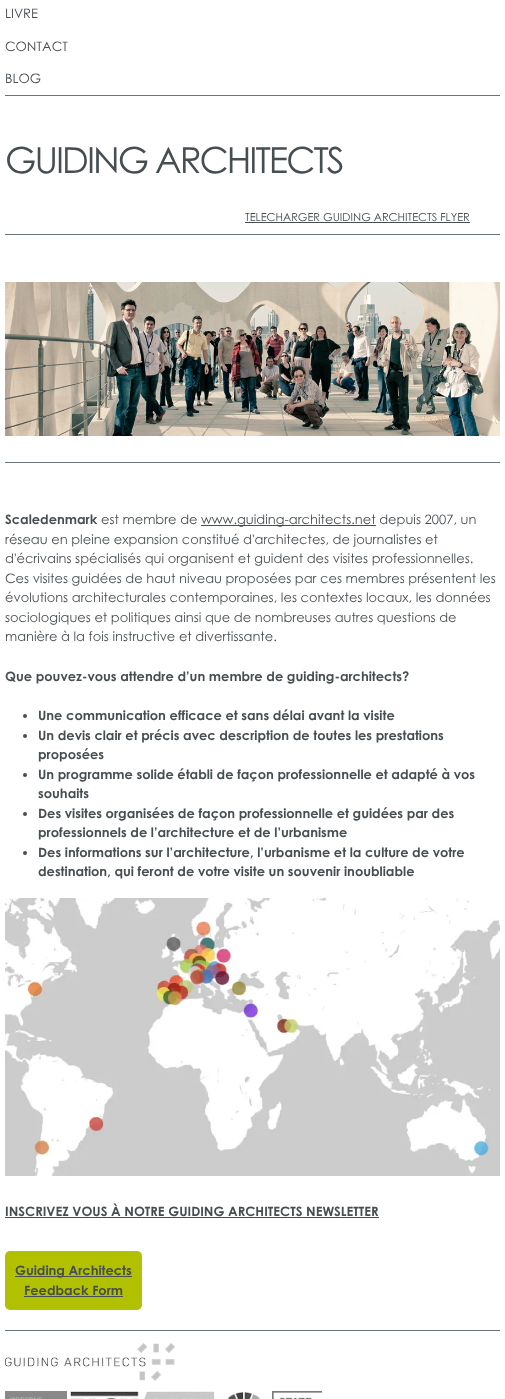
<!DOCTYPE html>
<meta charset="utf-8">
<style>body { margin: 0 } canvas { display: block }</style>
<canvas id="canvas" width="505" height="1399"></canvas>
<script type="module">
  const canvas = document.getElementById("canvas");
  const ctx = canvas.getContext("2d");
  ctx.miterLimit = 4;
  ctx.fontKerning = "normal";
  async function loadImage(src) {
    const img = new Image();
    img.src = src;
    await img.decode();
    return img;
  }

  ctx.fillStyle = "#ffffff";
  ctx.fillRect(0, 0, 505, 1399);
  ctx.fillStyle = "#69737b";
  ctx.fillRect(5, 95, 495, 1);
  ctx.font = "13px Century Gothic";
  ctx.fillStyle = "#474e52";
  ctx.fillText("LIVRE", 5, 18);
  ctx.fillText("CONTACT", 5, 51);
  ctx.fillText("BLOG", 5, 83);
  ctx.letterSpacing = "-2px";
  ctx.font = "36px Century Gothic";
  ctx.fillText("GUIDING ARCHITECTS", 5, 173);
  ctx.letterSpacing = "0px";
  ctx.font = "11px Century Gothic";
  ctx.fillText("TELECHARGER GUIDING ARCHITECTS FLYER", 245, 221);
  ctx.fillRect(245, 222, 225, 1);
  ctx.fillStyle = "#69737b";
  ctx.fillRect(5, 234, 495, 1);
  ctx.drawImage(await loadImage("img1.png"), 5, 282, 495, 154);
  ctx.fillRect(5, 462, 495, 1);
  ctx.font = "bold 13px Century Gothic";
  ctx.fillStyle = "#474e52";
  ctx.fillText("Scaledenmark", 5, 524);
  ctx.font = "13px Century Gothic";
  ctx.fillText("est membre de", 101, 524);
  ctx.fillRect(201, 525, 175, 1);
  ctx.fillText("www.guiding-architects.net depuis 2007, un", 201, 524);
  ctx.fillText("réseau en pleine expansion constitué d'architectes, de journalistes et", 5, 544);
  ctx.fillText("d'écrivains spécialisés qui organisent et guident des visites professionnelles.", 5, 563);
  ctx.fillText("Ces visites guidées de haut niveau proposées par ces membres présentent les", 5, 583);
  ctx.fillText("évolutions architecturales contemporaines, les contextes locaux, les données", 5, 602);
  ctx.fillText("sociologiques et politiques ainsi que de nombreuses autres questions de", 5, 622);
  ctx.fillText("manière à la fois instructive et divertissante.", 5, 641);
  ctx.font = "bold 13px Century Gothic";
  ctx.fillText("Que pouvez-vous attendre d’un membre de guiding-architects?", 5, 681);
  ctx.beginPath();
  ctx.arc(25, 716, 2, 0, Math.PI * 2);
  ctx.fill();
  ctx.fillText("Une communication efficace et sans délai avant la visite", 38, 720);
  ctx.beginPath();
  ctx.arc(25, 736, 2, 0, Math.PI * 2);
  ctx.fill();
  ctx.fillText("Un devis clair et précis avec description de toutes les prestations", 38, 740);
  ctx.fillText("proposées", 38, 759);
  ctx.beginPath();
  ctx.arc(25, 775, 2, 0, Math.PI * 2);
  ctx.fill();
  ctx.fillText("Un programme solide établi de façon professionnelle et adapté à vos", 38, 779);
  ctx.fillText("souhaits", 38, 798);
  ctx.beginPath();
  ctx.arc(25, 814, 2, 0, Math.PI * 2);
  ctx.fill();
  ctx.fillText("Des visites organisées de façon professionnelle et guidées par des", 38, 818);
  ctx.fillText("professionnels de l’architecture et de l’urbanisme", 38, 837);
  ctx.beginPath();
  ctx.arc(25, 853, 2, 0, Math.PI * 2);
  ctx.fill();
  ctx.fillText("Des informations sur l’architecture, l’urbanisme et la culture de votre", 38, 857);
  ctx.fillText("destination, qui feront de votre visite un souvenir inoubliable", 38, 876);
  ctx.drawImage(await loadImage("img2.png"), 5, 898, 495, 278);
  ctx.fillText("INSCRIVEZ VOUS À NOTRE GUIDING ARCHITECTS NEWSLETTER", 5, 1216);
  ctx.fillRect(5, 1217, 374, 1);
  ctx.fillStyle = "#b1c100";
  ctx.beginPath();
  ctx.roundRect(5, 1251, 137, 59, 5);
  ctx.fill();
  ctx.fillStyle = "#474e52";
  ctx.fillRect(15, 1276, 117, 1);
  ctx.fillText("Guiding Architects", 15, 1275);
  ctx.fillText("Feedback Form", 24, 1295);
  ctx.fillRect(24, 1296, 99, 1);
  ctx.fillStyle = "#69737b";
  ctx.fillRect(5, 1330, 495, 1);
  ctx.drawImage(await loadImage("img3.png"), 5, 1343, 170, 38);
  ctx.drawImage(await loadImage("img4.png"), 5, 1391, 62, 8);
  ctx.drawImage(await loadImage("img5.png"), 70, 1391, 145, 8);
  ctx.drawImage(await loadImage("img6.png"), 227, 1391, 33, 8);
  ctx.drawImage(await loadImage("img7.png"), 272, 1391, 50, 8);
</script>
